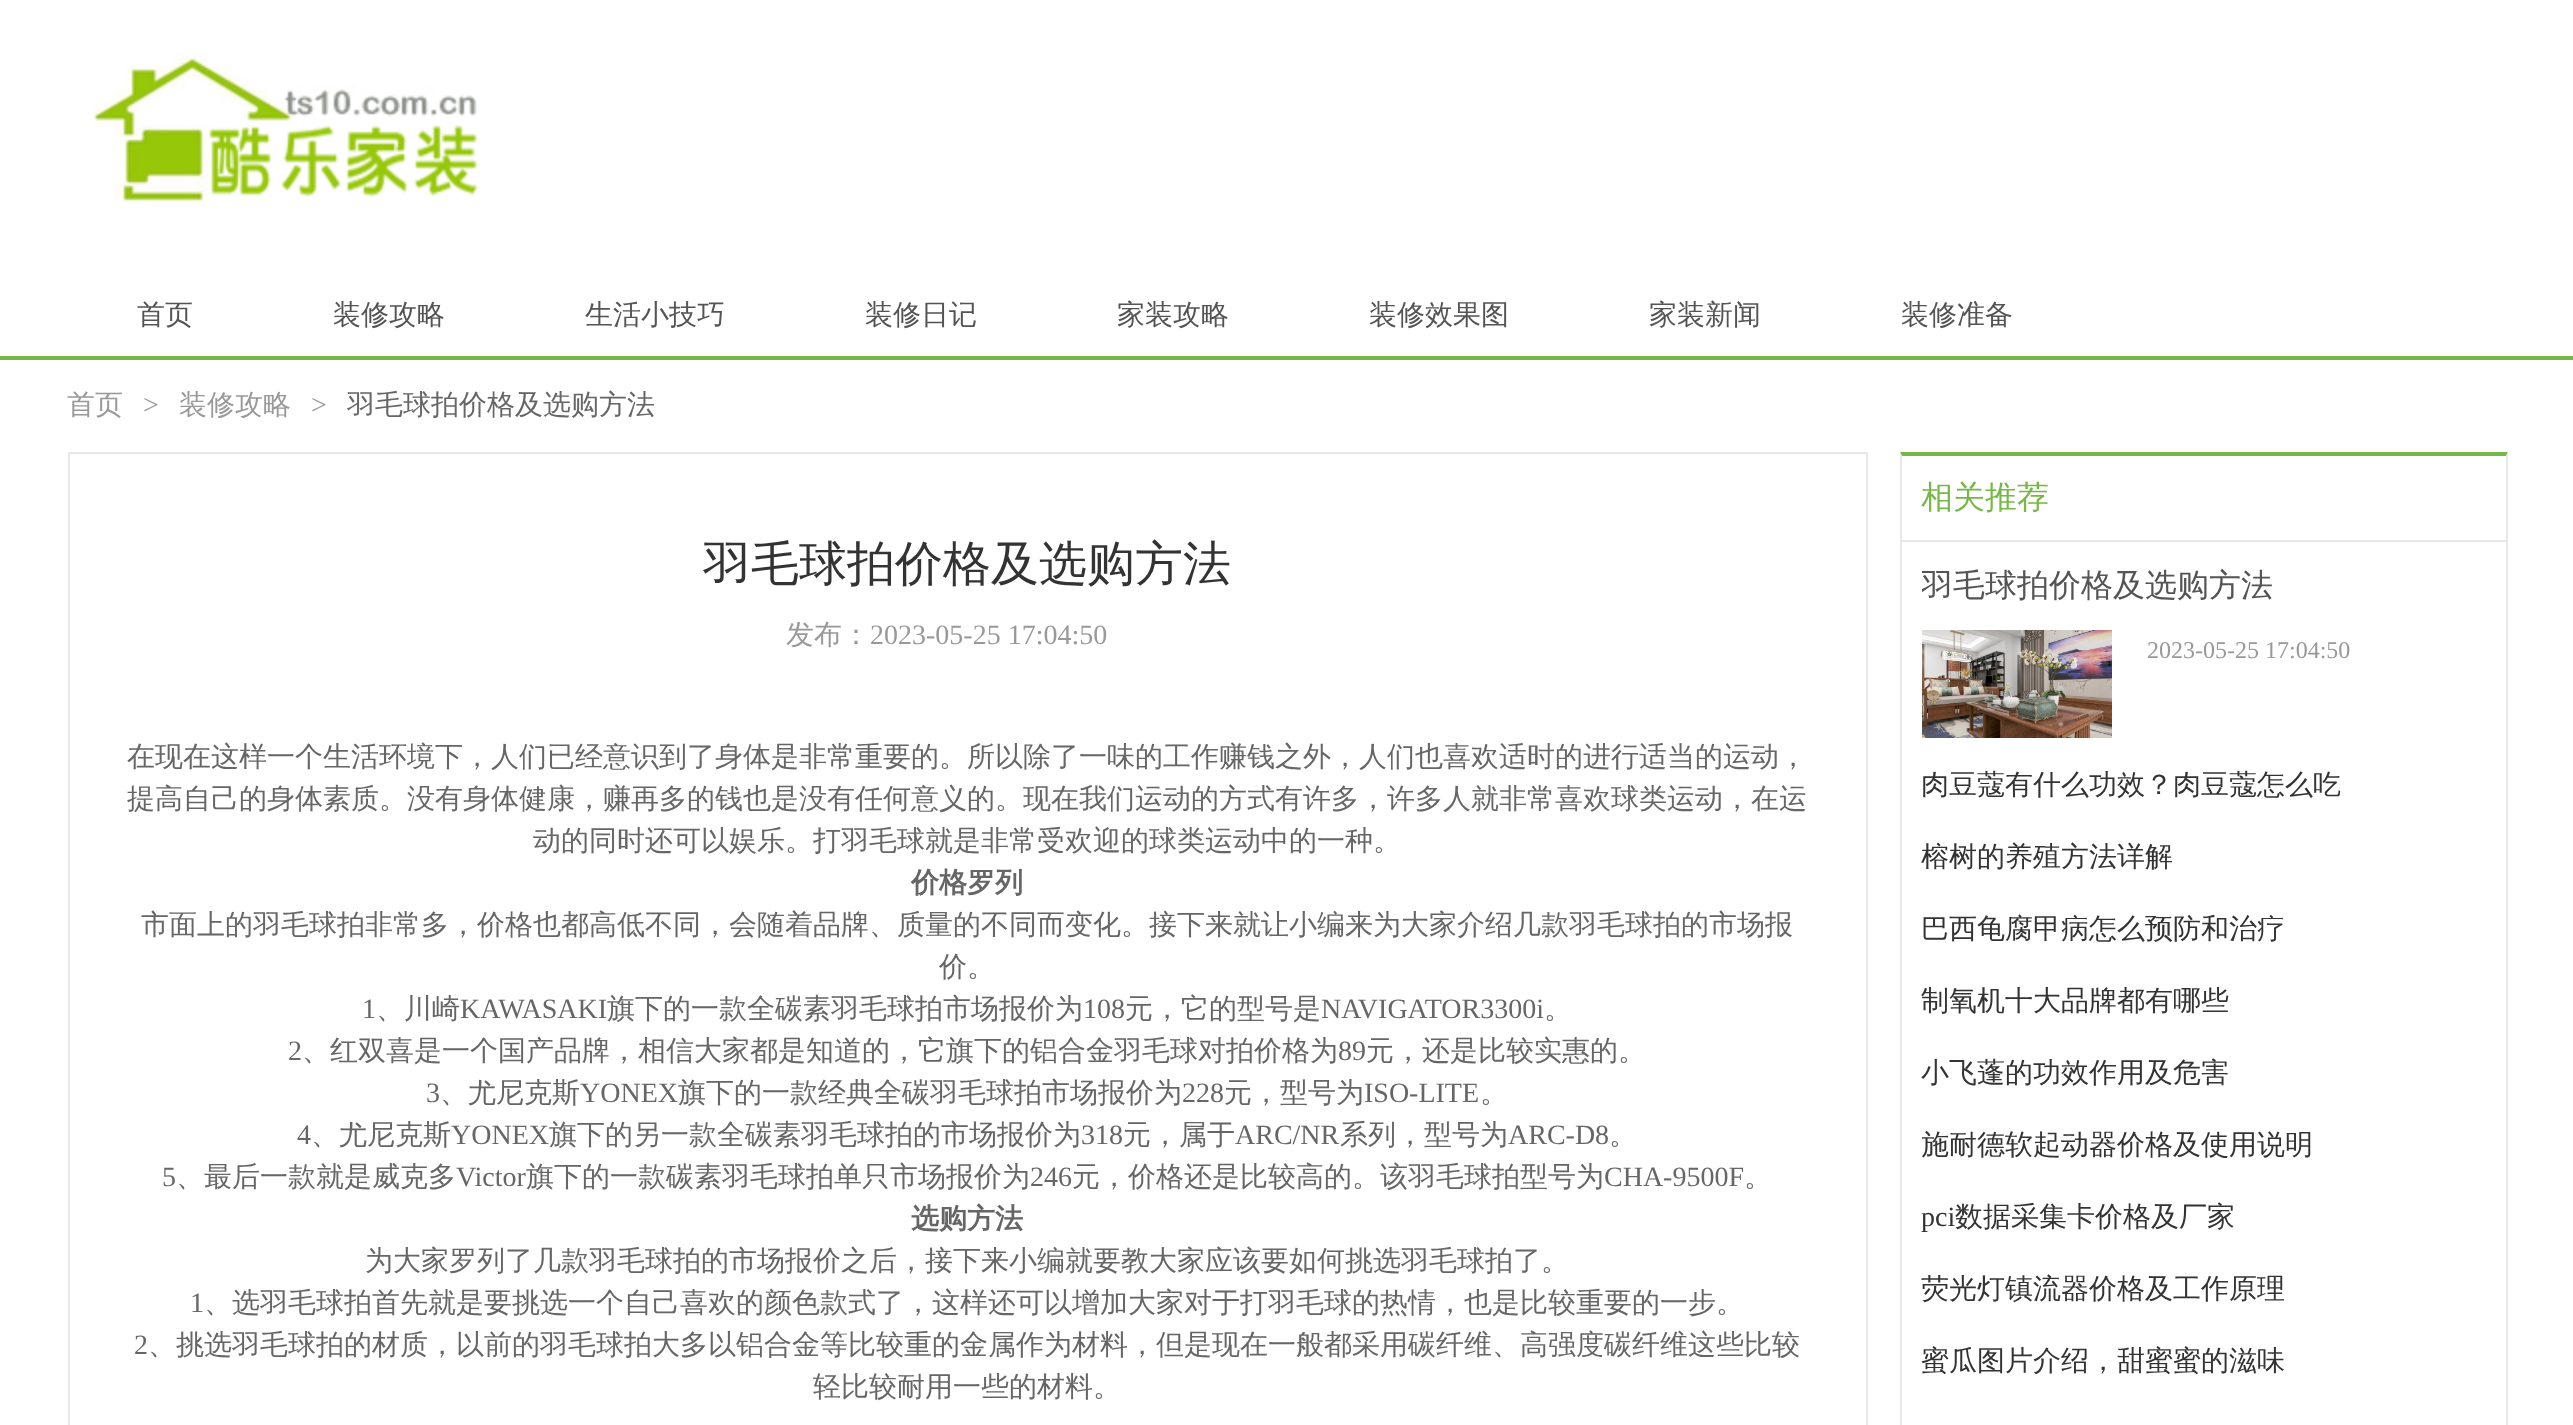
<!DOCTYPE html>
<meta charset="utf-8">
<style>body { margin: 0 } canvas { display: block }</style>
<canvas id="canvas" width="2573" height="1425"></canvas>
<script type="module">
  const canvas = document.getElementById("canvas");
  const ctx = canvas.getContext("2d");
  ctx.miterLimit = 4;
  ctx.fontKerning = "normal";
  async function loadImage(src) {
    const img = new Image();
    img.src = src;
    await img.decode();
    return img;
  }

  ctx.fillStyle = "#ffffff";
  ctx.fillRect(0, 0, 2573, 1425);
  ctx.drawImage(await loadImage("img1.png"), 93, 54, 386, 149);
  ctx.fillStyle = "#76b846";
  ctx.fillRect(0, 356, 2573, 4);
  ctx.font = "500 28px WenQuanYi Zen Hei";
  ctx.fillStyle = "#545454";
  ctx.fillText("首页", 137, 324);
  ctx.fillText("装修攻略", 333, 324);
  ctx.fillText("生活小技巧", 585, 324);
  ctx.fillText("装修日记", 865, 324);
  ctx.fillText("家装攻略", 1117, 324);
  ctx.fillText("装修效果图", 1369, 324);
  ctx.fillText("家装新闻", 1649, 324);
  ctx.fillText("装修准备", 1901, 324);
  ctx.fillStyle = "#999999";
  ctx.fillText("首页", 67, 414);
  ctx.font = "28px Liberation Serif";
  ctx.fillText(">", 143, 414);
  ctx.font = "500 28px WenQuanYi Zen Hei";
  ctx.fillText("装修攻略", 179, 414);
  ctx.font = "28px Liberation Serif";
  ctx.fillText(">", 311, 414);
  ctx.font = "500 28px WenQuanYi Zen Hei";
  ctx.fillStyle = "#666666";
  ctx.fillText("羽毛球拍价格及选购方法", 347, 414);
  ctx.strokeStyle = "#e7e7e7";
  ctx.lineWidth = 2;
  ctx.strokeRect(69, 453, 1798, 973);
  ctx.font = "500 48px WenQuanYi Zen Hei";
  ctx.fillStyle = "#333333";
  ctx.fillText("羽毛球拍价格及选购方法", 703, 580);
  ctx.font = "500 28px WenQuanYi Zen Hei";
  ctx.fillStyle = "#999999";
  ctx.fillText("发布：", 786, 644);
  ctx.font = "28px Liberation Serif";
  ctx.fillText("2023-05-25 17:04:50", 870, 644);
  ctx.font = "500 28px WenQuanYi Zen Hei";
  ctx.fillStyle = "#666666";
  ctx.fillText("在现在这样一个生活环境下，人们已经意识到了身体是非常重要的。所以除了一味的工作赚钱之外，人们也喜欢适时的进行适当的运动，", 127, 766);
  ctx.fillText("提高自己的身体素质。没有身体健康，赚再多的钱也是没有任何意义的。现在我们运动的方式有许多，许多人就非常喜欢球类运动，在运", 127, 808);
  ctx.fillText("动的同时还可以娱乐。打羽毛球就是非常受欢迎的球类运动中的一种。", 533, 850);
  ctx.font = "bold 28px WenQuanYi Zen Hei";
  ctx.fillText("价格罗列", 911, 892);
  ctx.font = "500 28px WenQuanYi Zen Hei";
  ctx.fillText("市面上的羽毛球拍非常多，价格也都高低不同，会随着品牌、质量的不同而变化。接下来就让小编来为大家介绍几款羽毛球拍的市场报", 141, 934);
  ctx.fillText("价。", 939, 976);
  ctx.font = "28px Liberation Serif";
  ctx.fillText("1", 362, 1018);
  ctx.font = "500 28px WenQuanYi Zen Hei";
  ctx.fillText("、川崎", 376, 1018);
  ctx.font = "28px Liberation Serif";
  ctx.fillText("KAWASAKI", 460, 1018);
  ctx.font = "500 28px WenQuanYi Zen Hei";
  ctx.fillText("旗下的一款全碳素羽毛球拍市场报价为", 607, 1018);
  ctx.font = "28px Liberation Serif";
  ctx.fillText("108", 1083, 1018);
  ctx.font = "500 28px WenQuanYi Zen Hei";
  ctx.fillText("元，它的型号是", 1125, 1018);
  ctx.font = "28px Liberation Serif";
  ctx.fillText("NAVIGATOR3300i", 1321, 1018);
  ctx.font = "500 28px WenQuanYi Zen Hei";
  ctx.fillText("。", 1544, 1018);
  ctx.font = "28px Liberation Serif";
  ctx.fillText("2", 288, 1060);
  ctx.font = "500 28px WenQuanYi Zen Hei";
  ctx.fillText("、红双喜是一个国产品牌，相信大家都是知道的，它旗下的铝合金羽毛球对拍价格为", 302, 1060);
  ctx.font = "28px Liberation Serif";
  ctx.fillText("89", 1338, 1060);
  ctx.font = "500 28px WenQuanYi Zen Hei";
  ctx.fillText("元，还是比较实惠的。", 1366, 1060);
  ctx.font = "28px Liberation Serif";
  ctx.fillText("3", 426, 1102);
  ctx.font = "500 28px WenQuanYi Zen Hei";
  ctx.fillText("、尤尼克斯", 440, 1102);
  ctx.font = "28px Liberation Serif";
  ctx.fillText("YONEX", 580, 1102);
  ctx.font = "500 28px WenQuanYi Zen Hei";
  ctx.fillText("旗下的一款经典全碳羽毛球拍市场报价为", 678, 1102);
  ctx.font = "28px Liberation Serif";
  ctx.fillText("228", 1182, 1102);
  ctx.font = "500 28px WenQuanYi Zen Hei";
  ctx.fillText("元，型号为", 1224, 1102);
  ctx.font = "28px Liberation Serif";
  ctx.fillText("ISO-LITE", 1364, 1102);
  ctx.font = "500 28px WenQuanYi Zen Hei";
  ctx.fillText("。", 1480, 1102);
  ctx.font = "28px Liberation Serif";
  ctx.fillText("4", 297, 1144);
  ctx.font = "500 28px WenQuanYi Zen Hei";
  ctx.fillText("、尤尼克斯", 311, 1144);
  ctx.font = "28px Liberation Serif";
  ctx.fillText("YONEX", 451, 1144);
  ctx.font = "500 28px WenQuanYi Zen Hei";
  ctx.fillText("旗下的另一款全碳素羽毛球拍的市场报价为", 549, 1144);
  ctx.font = "28px Liberation Serif";
  ctx.fillText("318", 1081, 1144);
  ctx.font = "500 28px WenQuanYi Zen Hei";
  ctx.fillText("元，属于", 1123, 1144);
  ctx.font = "28px Liberation Serif";
  ctx.fillText("ARC/NR", 1235, 1144);
  ctx.font = "500 28px WenQuanYi Zen Hei";
  ctx.fillText("系列，型号为", 1340, 1144);
  ctx.font = "28px Liberation Serif";
  ctx.fillText("ARC-D8", 1508, 1144);
  ctx.font = "500 28px WenQuanYi Zen Hei";
  ctx.fillText("。", 1609, 1144);
  ctx.font = "28px Liberation Serif";
  ctx.fillText("5", 162, 1186);
  ctx.font = "500 28px WenQuanYi Zen Hei";
  ctx.fillText("、最后一款就是威克多", 176, 1186);
  ctx.font = "28px Liberation Serif";
  ctx.fillText("Victor", 456, 1186);
  ctx.font = "500 28px WenQuanYi Zen Hei";
  ctx.fillText("旗下的一款碳素羽毛球拍单只市场报价为", 526, 1186);
  ctx.font = "28px Liberation Serif";
  ctx.fillText("246", 1030, 1186);
  ctx.font = "500 28px WenQuanYi Zen Hei";
  ctx.fillText("元，价格还是比较高的。该羽毛球拍型号为", 1072, 1186);
  ctx.font = "28px Liberation Serif";
  ctx.fillText("CHA-9500F", 1604, 1186);
  ctx.font = "500 28px WenQuanYi Zen Hei";
  ctx.fillText("。", 1744, 1186);
  ctx.font = "bold 28px WenQuanYi Zen Hei";
  ctx.fillText("选购方法", 911, 1228);
  ctx.font = "500 28px WenQuanYi Zen Hei";
  ctx.fillText("为大家罗列了几款羽毛球拍的市场报价之后，接下来小编就要教大家应该要如何挑选羽毛球拍了。", 365, 1270);
  ctx.font = "28px Liberation Serif";
  ctx.fillText("1", 190, 1312);
  ctx.font = "500 28px WenQuanYi Zen Hei";
  ctx.fillText("、选羽毛球拍首先就是要挑选一个自己喜欢的颜色款式了，这样还可以增加大家对于打羽毛球的热情，也是比较重要的一步。", 204, 1312);
  ctx.font = "28px Liberation Serif";
  ctx.fillText("2", 134, 1354);
  ctx.font = "500 28px WenQuanYi Zen Hei";
  ctx.fillText("、挑选羽毛球拍的材质，以前的羽毛球拍大多以铝合金等比较重的金属作为材料，但是现在一般都采用碳纤维、高强度碳纤维这些比较", 148, 1354);
  ctx.fillText("轻比较耐用一些的材料。", 813, 1396);
  ctx.fillStyle = "#75b845";
  ctx.beginPath();
  ctx.moveTo(1900, 452);
  ctx.lineTo(2508, 452);
  ctx.lineTo(2506, 456);
  ctx.lineTo(1902, 456);
  ctx.closePath();
  ctx.fill();
  ctx.fillStyle = "#e7e7e7";
  ctx.beginPath();
  ctx.moveTo(2508, 452);
  ctx.lineTo(2508, 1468);
  ctx.lineTo(2506, 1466);
  ctx.lineTo(2506, 456);
  ctx.closePath();
  ctx.fill();
  ctx.beginPath();
  ctx.moveTo(1900, 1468);
  ctx.lineTo(1900, 452);
  ctx.lineTo(1902, 456);
  ctx.lineTo(1902, 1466);
  ctx.closePath();
  ctx.fill();
  ctx.fillRect(1902, 540, 604, 2);
  ctx.font = "500 32px WenQuanYi Zen Hei";
  ctx.fillStyle = "#76b846";
  ctx.fillText("相关推荐", 1921, 508);
  ctx.save();
  ctx.beginPath();
  ctx.rect(1922, 562, 564, 176);
  ctx.clip();
  ctx.fillStyle = "#545454";
  ctx.fillText("羽毛球拍价格及选购方法", 1921, 596);
  ctx.restore();
  ctx.drawImage(await loadImage("img2.png"), 1922, 630, 190, 108);
  ctx.font = "24px Liberation Serif";
  ctx.fillStyle = "#999999";
  ctx.fillText("2023-05-25 17:04:50", 2147, 658);
  ctx.font = "500 28px WenQuanYi Zen Hei";
  ctx.fillStyle = "#333333";
  ctx.fillText("肉豆蔻有什么功效？肉豆蔻怎么吃", 1921, 794);
  ctx.fillText("榕树的养殖方法详解", 1921, 866);
  ctx.fillText("巴西龟腐甲病怎么预防和治疗", 1921, 938);
  ctx.fillText("制氧机十大品牌都有哪些", 1921, 1010);
  ctx.fillText("小飞蓬的功效作用及危害", 1921, 1082);
  ctx.save();
  ctx.beginPath();
  ctx.rect(1922, 1118, 564, 72);
  ctx.clip();
  ctx.fillText("施耐德软起动器价格及使用说明", 1921, 1154);
  ctx.restore();
  ctx.font = "28px Liberation Serif";
  ctx.fillText("pci", 1921, 1226);
  ctx.font = "500 28px WenQuanYi Zen Hei";
  ctx.fillText("数据采集卡价格及厂家", 1955, 1226);
  ctx.fillText("荧光灯镇流器价格及工作原理", 1921, 1298);
  ctx.fillText("蜜瓜图片介绍，甜蜜蜜的滋味", 1921, 1370);
</script>
